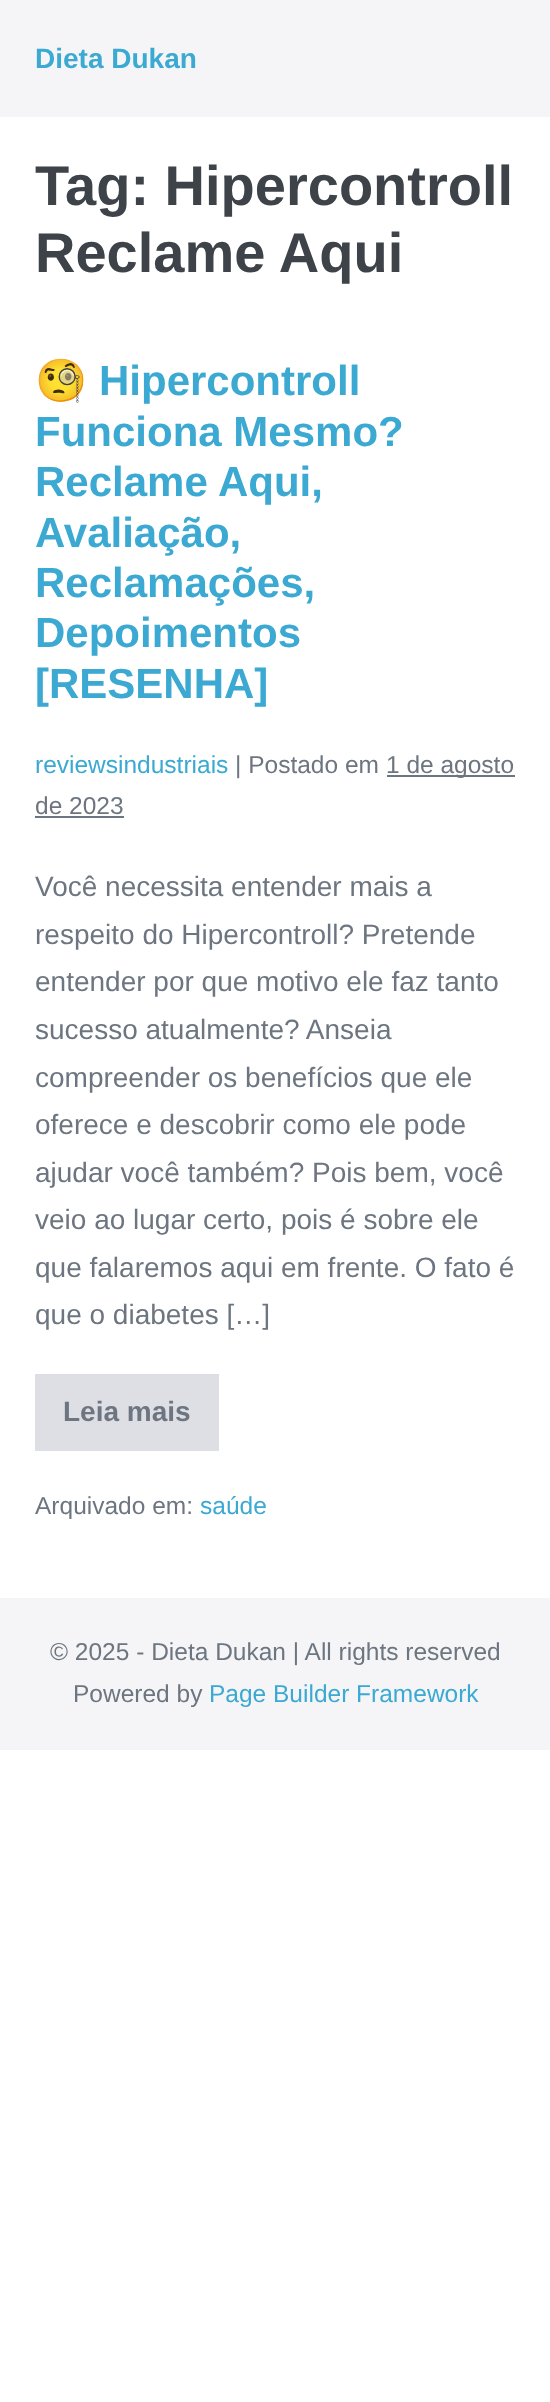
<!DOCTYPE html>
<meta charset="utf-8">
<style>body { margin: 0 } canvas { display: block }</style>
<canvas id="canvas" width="550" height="2402"></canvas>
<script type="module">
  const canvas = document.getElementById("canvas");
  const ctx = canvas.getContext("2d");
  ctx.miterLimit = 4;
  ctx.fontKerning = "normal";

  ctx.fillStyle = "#ffffff";
  ctx.fillRect(0, 0, 550, 2402);
  ctx.fillStyle = "#f5f5f7";
  ctx.fillRect(0, 0, 550, 117);
  ctx.font = "bold 28px Liberation Sans";
  ctx.fillStyle = "#3ba9d2";
  ctx.fillText("Dieta Dukan", 35, 68);
  ctx.font = "bold 56px Liberation Sans";
  ctx.fillStyle = "#3e4349";
  ctx.fillText("Tag: Hipercontroll", 35, 205);
  ctx.fillText("Reclame Aqui", 35, 272);
  ctx.font = "bold 42px Noto Color Emoji";
  ctx.fillStyle = "#3ba9d2";
  ctx.fillText("🧐", 35, 395);
  ctx.font = "bold 42px Liberation Sans";
  ctx.fillText("Hipercontroll", 99, 395);
  ctx.fillText("Funciona Mesmo?", 35, 446);
  ctx.fillText("Reclame Aqui,", 35, 496);
  ctx.fillText("Avaliação,", 35, 547);
  ctx.fillText("Reclamações,", 35, 597);
  ctx.fillText("Depoimentos", 35, 647);
  ctx.fillText("[RESENHA]", 35, 698);
  ctx.font = "24.5px Liberation Sans";
  ctx.fillText("reviewsindustriais", 35, 773);
  ctx.fillStyle = "#6d7680";
  ctx.fillText("| Postado em", 235, 773);
  ctx.fillRect(387, 775, 128, 2);
  ctx.fillText("1 de agosto", 386, 773);
  ctx.fillText("de 2023", 35, 814);
  ctx.fillRect(35, 816, 89, 2);
  ctx.font = "28px Liberation Sans";
  ctx.fillText("Você necessita entender mais a", 35, 896);
  ctx.fillText("respeito do Hipercontroll? Pretende", 35, 944);
  ctx.fillText("entender por que motivo ele faz tanto", 35, 991);
  ctx.fillText("sucesso atualmente? Anseia", 35, 1039);
  ctx.fillText("compreender os benefícios que ele", 35, 1087);
  ctx.fillText("oferece e descobrir como ele pode", 35, 1134);
  ctx.fillText("ajudar você também? Pois bem, você", 35, 1182);
  ctx.fillText("veio ao lugar certo, pois é sobre ele", 35, 1229);
  ctx.fillText("que falaremos aqui em frente. O fato é", 35, 1277);
  ctx.fillText("que o diabetes […]", 35, 1324);
  ctx.fillStyle = "#dedee5";
  ctx.fillRect(35, 1374, 184, 77);
  ctx.font = "bold 28px Liberation Sans";
  ctx.fillStyle = "#6d7680";
  ctx.fillText("Leia mais", 63, 1421);
  ctx.font = "24.5px Liberation Sans";
  ctx.fillText("Arquivado em:", 35, 1514);
  ctx.fillStyle = "#3ba9d2";
  ctx.fillText("saúde", 200, 1514);
  ctx.fillStyle = "#f5f5f7";
  ctx.fillRect(0, 1598, 550, 152);
  ctx.fillStyle = "#6d7680";
  ctx.fillText("© 2025 - Dieta Dukan | All rights reserved", 50, 1660);
  ctx.fillText("Powered by", 73, 1702);
  ctx.fillStyle = "#3ba9d2";
  ctx.fillText("Page Builder Framework", 209, 1702);
</script>
